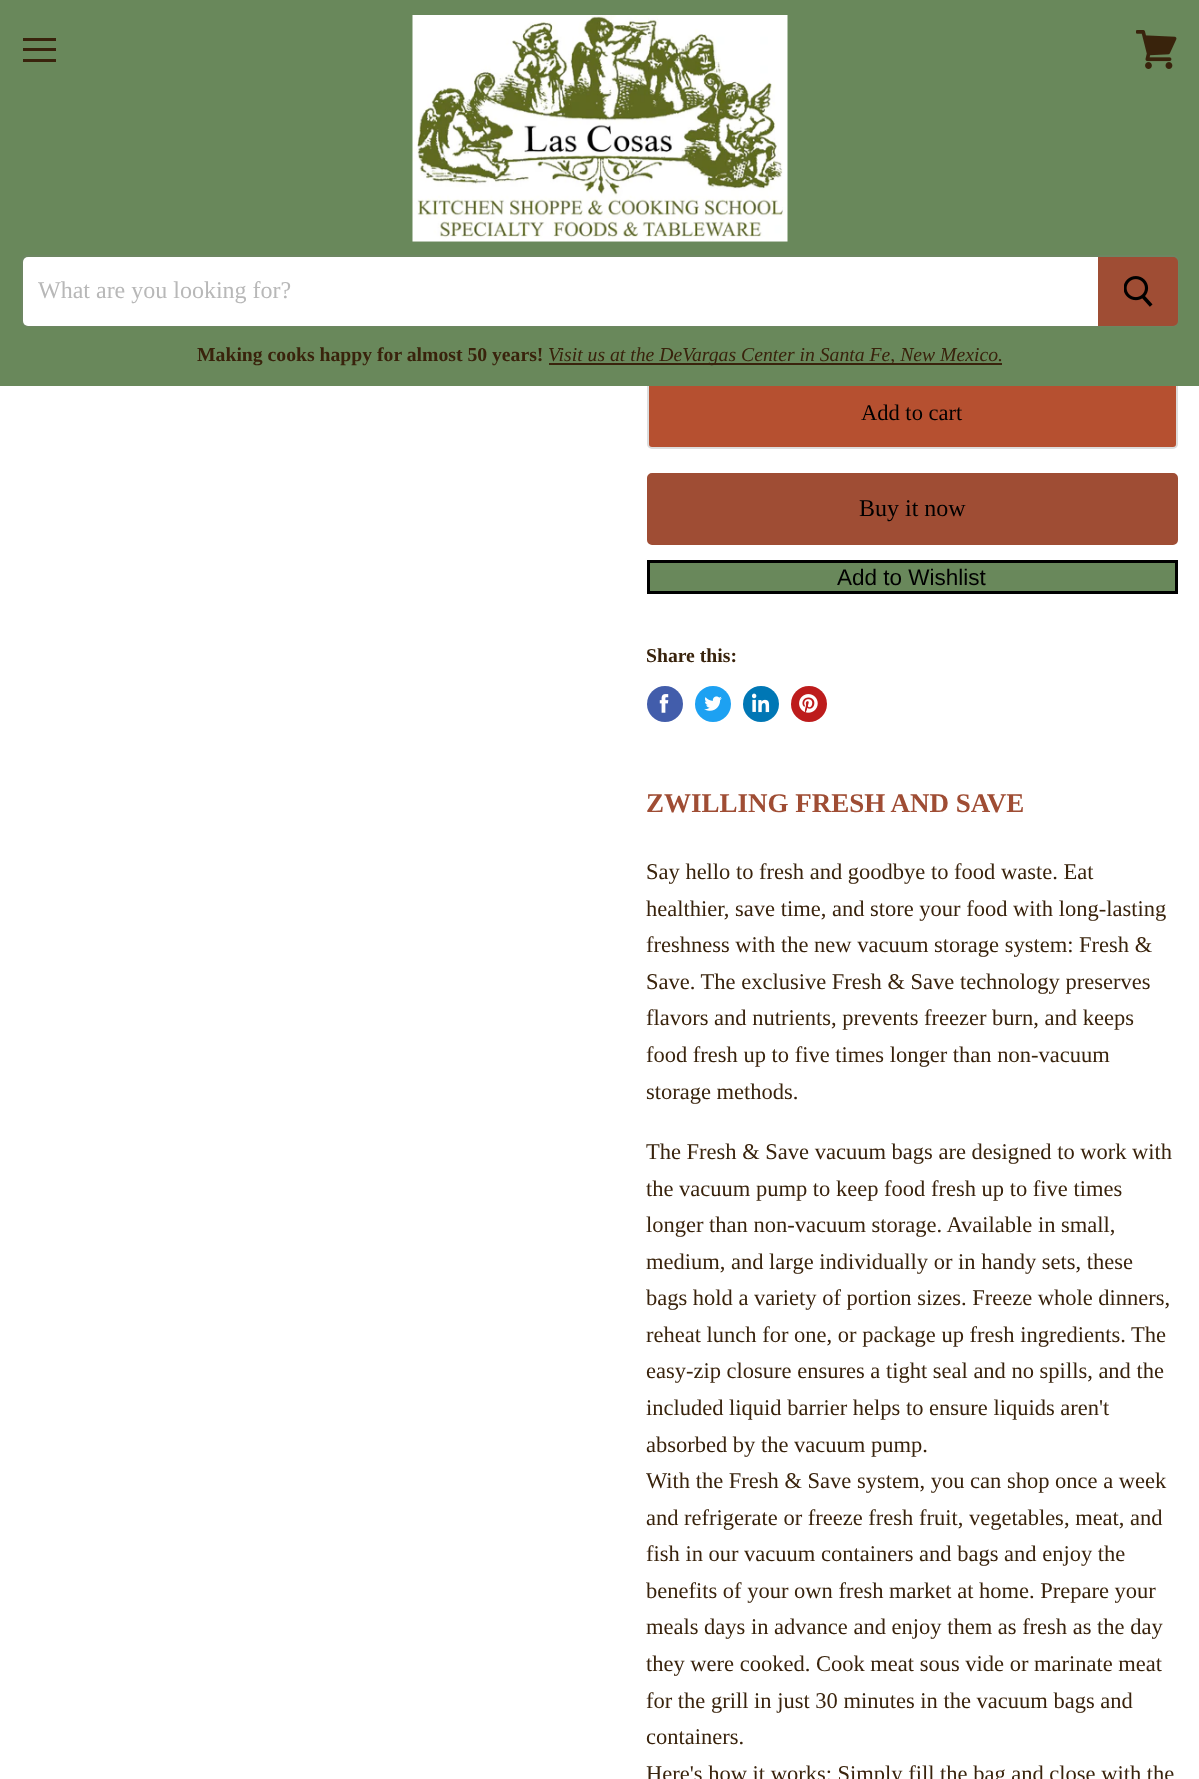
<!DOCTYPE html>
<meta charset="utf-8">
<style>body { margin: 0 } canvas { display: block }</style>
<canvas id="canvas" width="1199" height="1779"></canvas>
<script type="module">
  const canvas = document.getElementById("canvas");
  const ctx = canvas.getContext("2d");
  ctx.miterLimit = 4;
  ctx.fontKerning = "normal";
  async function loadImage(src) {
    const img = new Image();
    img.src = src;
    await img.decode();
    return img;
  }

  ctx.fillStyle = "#ffffff";
  ctx.fillRect(0, 0, 1199, 1779);
  ctx.fillStyle = "#b65030";
  ctx.beginPath();
  ctx.roundRect(648, 379, 529, 69, 4);
  ctx.fill();
  ctx.strokeStyle = "#dddddd";
  ctx.lineWidth = 2;
  ctx.stroke();
  ctx.fillStyle = "#69885b";
  ctx.fillRect(0, 0, 1199, 386);
  ctx.fillStyle = "#39230c";
  ctx.fillRect(23, 38, 33, 3);
  ctx.fillRect(23, 48, 33, 3);
  ctx.fillRect(23, 59, 33, 3);
  ctx.drawImage(await loadImage("img1.png"), 1136, 30, 41, 39);
  ctx.drawImage(await loadImage("img2.png"), 412, 15, 376, 227);
  ctx.beginPath();
  ctx.roundRect(22, 256, 1156, 70, 5);
  ctx.strokeStyle = "#6d8662";
  ctx.stroke();
  ctx.fillStyle = "#ffffff";
  ctx.beginPath();
  ctx.roundRect(23, 257, 1075, 69, [5, 0, 0, 5]);
  ctx.fill();
  ctx.font = "24px Liberation Serif";
  ctx.fillStyle = "#b8b8b8";
  ctx.fillText("What are you looking for?", 38, 298);
  ctx.fillStyle = "#9f4d34";
  ctx.beginPath();
  ctx.roundRect(1099, 258, 78, 67, [0, 4, 4, 0]);
  ctx.fill();
  ctx.strokeStyle = "#9f4d34";
  ctx.stroke();
  ctx.drawImage(await loadImage("img3.png"), 1124, 276, 29, 31);
  ctx.font = "bold 19.7px Liberation Serif";
  ctx.fillStyle = "#39230c";
  ctx.fillText("Making cooks happy for almost 50 years!", 197, 361);
  ctx.fillRect(549, 363, 453, 2);
  ctx.font = "italic 19.7px Liberation Serif";
  ctx.fillText("Visit us at the DeVargas Center in Santa Fe, New Mexico.", 548, 361);
  ctx.font = "22.5px Liberation Serif";
  ctx.fillStyle = "#000000";
  ctx.fillText("Add to cart", 861, 420);
  ctx.fillStyle = "#9f4d34";
  ctx.beginPath();
  ctx.roundRect(648, 474, 529, 70, 4);
  ctx.fill();
  ctx.stroke();
  ctx.font = "24px Liberation Serif";
  ctx.fillStyle = "#000000";
  ctx.fillText("Buy it now", 859, 516);
  ctx.fillStyle = "#69885b";
  ctx.beginPath();
  ctx.rect(648.5, 561.5, 528, 31);
  ctx.fill();
  ctx.strokeStyle = "#000000";
  ctx.lineWidth = 3;
  ctx.stroke();
  ctx.font = "22.5px Liberation Sans";
  ctx.fillStyle = "#000000";
  ctx.fillText("Add to Wishlist", 837, 585);
  ctx.font = "bold 19.7px Liberation Serif";
  ctx.fillStyle = "#39230c";
  ctx.fillText("Share this:", 646, 662);
  ctx.fillStyle = "#425dab";
  ctx.beginPath();
  ctx.arc(665, 704, 18, 0, Math.PI * 2);
  ctx.fill();
  ctx.drawImage(await loadImage("img4.png"), 659, 694, 10, 19);
  ctx.fillStyle = "#1da1f2";
  ctx.beginPath();
  ctx.arc(713, 704, 18, 0, Math.PI * 2);
  ctx.fill();
  ctx.drawImage(await loadImage("img5.png"), 704, 696, 18, 15);
  ctx.fillStyle = "#0077b5";
  ctx.beginPath();
  ctx.arc(761, 704, 18, 0, Math.PI * 2);
  ctx.fill();
  ctx.drawImage(await loadImage("img6.png"), 752, 693, 18, 20);
  ctx.fillStyle = "#bd1c1c";
  ctx.beginPath();
  ctx.arc(809, 704, 18, 0, Math.PI * 2);
  ctx.fill();
  ctx.drawImage(await loadImage("img7.png"), 799, 694, 19, 19);
  ctx.font = "bold 27px Liberation Serif";
  ctx.fillStyle = "#9f4d34";
  ctx.fillText("ZWILLING FRESH AND SAVE", 646, 812);
  ctx.font = "22.5px Liberation Serif";
  ctx.fillStyle = "#39230c";
  ctx.fillText("Say hello to fresh and goodbye to food waste. Eat", 646, 879);
  ctx.fillText("healthier, save time, and store your food with long-lasting", 646, 916);
  ctx.fillText("freshness with the new vacuum storage system: Fresh &", 646, 952);
  ctx.fillText("Save. The exclusive Fresh & Save technology preserves", 646, 989);
  ctx.fillText("flavors and nutrients, prevents freezer burn, and keeps", 646, 1025);
  ctx.fillText("food fresh up to five times longer than non-vacuum", 646, 1062);
  ctx.fillText("storage methods.", 646, 1099);
  ctx.fillText("The Fresh & Save vacuum bags are designed to work with", 646, 1159);
  ctx.fillText("the vacuum pump to keep food fresh up to five times", 646, 1196);
  ctx.fillText("longer than non-vacuum storage. Available in small,", 646, 1232);
  ctx.fillText("medium, and large individually or in handy sets, these", 646, 1269);
  ctx.fillText("bags hold a variety of portion sizes. Freeze whole dinners,", 646, 1305);
  ctx.fillText("reheat lunch for one, or package up fresh ingredients. The", 646, 1342);
  ctx.fillText("easy-zip closure ensures a tight seal and no spills, and the", 646, 1378);
  ctx.fillText("included liquid barrier helps to ensure liquids aren't", 646, 1415);
  ctx.fillText("absorbed by the vacuum pump.", 646, 1452);
  ctx.fillText("With the Fresh & Save system, you can shop once a week", 646, 1488);
  ctx.fillText("and refrigerate or freeze fresh fruit, vegetables, meat, and", 646, 1525);
  ctx.fillText("fish in our vacuum containers and bags and enjoy the", 646, 1561);
  ctx.fillText("benefits of your own fresh market at home. Prepare your", 646, 1598);
  ctx.fillText("meals days in advance and enjoy them as fresh as the day", 646, 1634);
  ctx.fillText("they were cooked. Cook meat sous vide or marinate meat", 646, 1671);
  ctx.fillText("for the grill in just 30 minutes in the vacuum bags and", 646, 1708);
  ctx.fillText("containers.", 646, 1744);
  ctx.fillText("Here's how it works: Simply fill the bag and close with the", 646, 1781);
</script>
